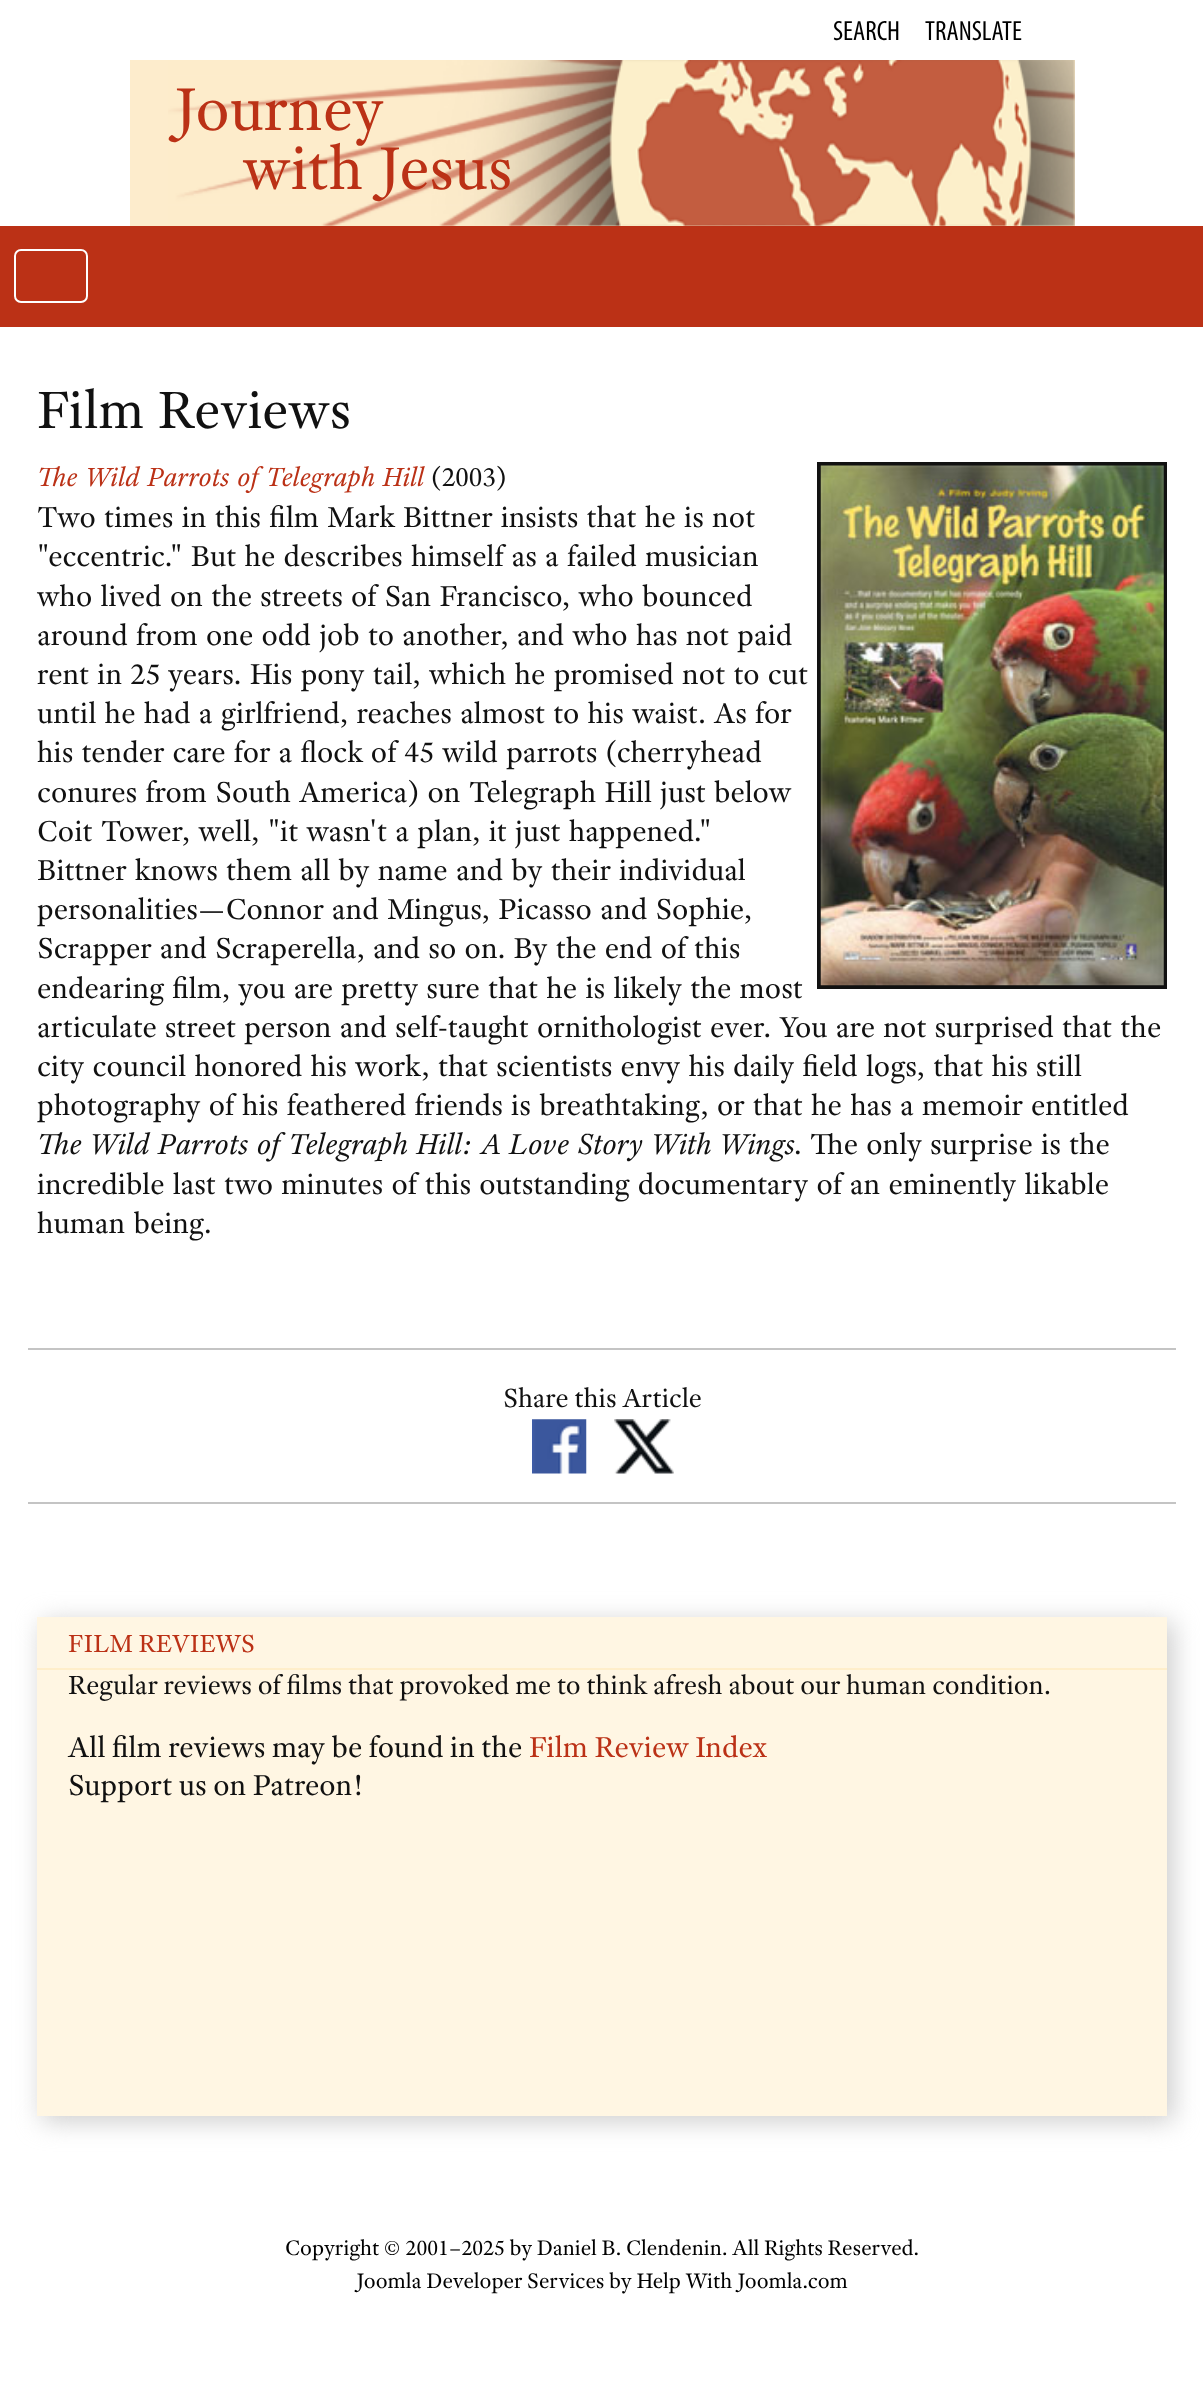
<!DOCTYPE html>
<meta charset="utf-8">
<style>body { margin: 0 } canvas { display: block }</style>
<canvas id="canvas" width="1203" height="2384"></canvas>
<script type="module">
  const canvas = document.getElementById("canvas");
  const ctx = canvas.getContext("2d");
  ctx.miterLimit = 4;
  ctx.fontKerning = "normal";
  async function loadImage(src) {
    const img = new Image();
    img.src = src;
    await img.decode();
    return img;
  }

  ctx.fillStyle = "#ffffff";
  ctx.fillRect(0, 0, 1203, 2384);
  ctx.font = "28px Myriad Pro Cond";
  ctx.fillStyle = "#000000";
  ctx.fillText("SEARCH", 833, 40);
  ctx.fillText("TRANSLATE", 925, 40);
  ctx.fillStyle = "#fdeccc";
  ctx.fillRect(130, 60, 945, 166);
  ctx.drawImage(await loadImage("img1.png"), 168, 60, 907, 166);
  ctx.font = "64.5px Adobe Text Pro";
  ctx.fillStyle = "#bb3116";
  ctx.fillText("Journey", 173, 130);
  ctx.fillText("with Jesus", 243, 189);
  ctx.wordSpacing = "1.75px";
  ctx.font = "56px Adobe Text Pro";
  ctx.fillStyle = "#111111";
  ctx.fillText("Film Reviews", 37, 428);
  ctx.font = "italic 28px Adobe Text Pro";
  ctx.fillStyle = "#bb3116";
  ctx.fillText("The Wild Parrots of Telegraph Hill", 37, 486);
  ctx.strokeStyle = "#111111";
  ctx.lineWidth = 4;
  ctx.strokeRect(819, 464, 346, 523);
  ctx.drawImage(await loadImage("img2.png"), 820, 465, 344, 521);
  ctx.wordSpacing = "0px";
  ctx.font = "28px Adobe Text Pro";
  ctx.fillStyle = "#111111";
  ctx.fillText("(2003)", 431, 486);
  ctx.wordSpacing = "1.75px";
  ctx.font = "30.8px Adobe Text Pro";
  ctx.fillText("Two times in this film Mark Bittner insists that he is not", 37, 527);
  ctx.fillText("\"eccentric.\" But he describes himself as a failed musician", 37, 566);
  ctx.fillText("who lived on the streets of San Francisco, who bounced", 37, 606);
  ctx.fillText("around from one odd job to another, and who has not paid", 37, 645);
  ctx.fillText("rent in 25 years. His pony tail, which he promised not to cut", 37, 684);
  ctx.fillText("until he had a girlfriend, reaches almost to his waist. As for", 37, 723);
  ctx.fillText("his tender care for a flock of 45 wild parrots (cherryhead", 37, 762);
  ctx.fillText("conures from South America) on Telegraph Hill just below", 37, 802);
  ctx.fillText("Coit Tower, well, \"it wasn't a plan, it just happened.\"", 37, 841);
  ctx.fillText("Bittner knows them all by name and by their individual", 37, 880);
  ctx.fillText("personalities—Connor and Mingus, Picasso and Sophie,", 37, 919);
  ctx.fillText("Scrapper and Scraperella, and so on. By the end of this", 37, 958);
  ctx.fillText("endearing film, you are pretty sure that he is likely the most", 37, 998);
  ctx.fillText("articulate street person and self-taught ornithologist ever. You are not surprised that the", 37, 1037);
  ctx.fillText("city council honored his work, that scientists envy his daily field logs, that his still", 37, 1076);
  ctx.fillText("photography of his feathered friends is breathtaking, or that he has a memoir entitled", 37, 1115);
  ctx.font = "italic 30.8px Adobe Text Pro";
  ctx.fillText("The Wild Parrots of Telegraph Hill: A Love Story With Wings", 37, 1154);
  ctx.font = "30.8px Adobe Text Pro";
  ctx.fillText(". The only surprise is the", 794, 1154);
  ctx.fillText("incredible last two minutes of this outstanding documentary of an eminently likable", 37, 1194);
  ctx.fillText("human being.", 37, 1233);
  ctx.fillStyle = "#c4c4c4";
  ctx.fillRect(28, 1348, 1148, 2);
  ctx.wordSpacing = "0px";
  ctx.font = "28px Adobe Text Pro";
  ctx.fillStyle = "#111111";
  ctx.fillText("Share this Article", 503, 1407);
  ctx.drawImage(await loadImage("img3.png"), 532, 1419, 55, 55);
  ctx.drawImage(await loadImage("img4.png"), 614, 1419, 60, 55);
  ctx.fillStyle = "#c4c4c4";
  ctx.fillRect(28, 1502, 1148, 2);
  ctx.fillStyle = "#cccccc";
  ctx.filter = "blur(13px)";
  ctx.beginPath();
  ctx.rect(42, 1622, 1131, 499);
  ctx.fill();
  ctx.filter = "none";
  ctx.fillStyle = "#fff6e3";
  ctx.fillRect(37, 1617, 1130, 499);
  ctx.fillStyle = "#ffeeca";
  ctx.fillRect(37, 1668, 1130, 2);
  ctx.font = "26.25px Adobe Text Pro";
  ctx.fillStyle = "#bb3116";
  ctx.fillText("FILM REVIEWS", 68, 1652);
  ctx.font = "28px Adobe Text Pro";
  ctx.fillStyle = "#111111";
  ctx.fillText("Regular reviews of films that provoked me to think afresh about our human condition.", 68, 1694);
  ctx.font = "30.8px Adobe Text Pro";
  ctx.fillText("All film reviews may be found in the", 68, 1757);
  ctx.fillStyle = "#bb3116";
  ctx.fillText("Film Review Index", 529, 1757);
  ctx.fillStyle = "#111111";
  ctx.fillText("Support us on Patreon!", 68, 1795);
  ctx.fillStyle = "#bb3116";
  ctx.fillRect(0, 226, 1203, 101);
  ctx.beginPath();
  ctx.roundRect(15, 250, 72, 52, 6);
  ctx.strokeStyle = "#ffffff";
  ctx.lineWidth = 2;
  ctx.stroke();
  ctx.font = "22.4px Adobe Text Pro";
  ctx.fillStyle = "#000000";
  ctx.fillText("Copyright © 2001–2025 by Daniel B. Clendenin. All Rights Reserved.", 285, 2255);
  ctx.fillText("Joomla Developer Services by Help With Joomla.com", 356, 2288);
</script>
